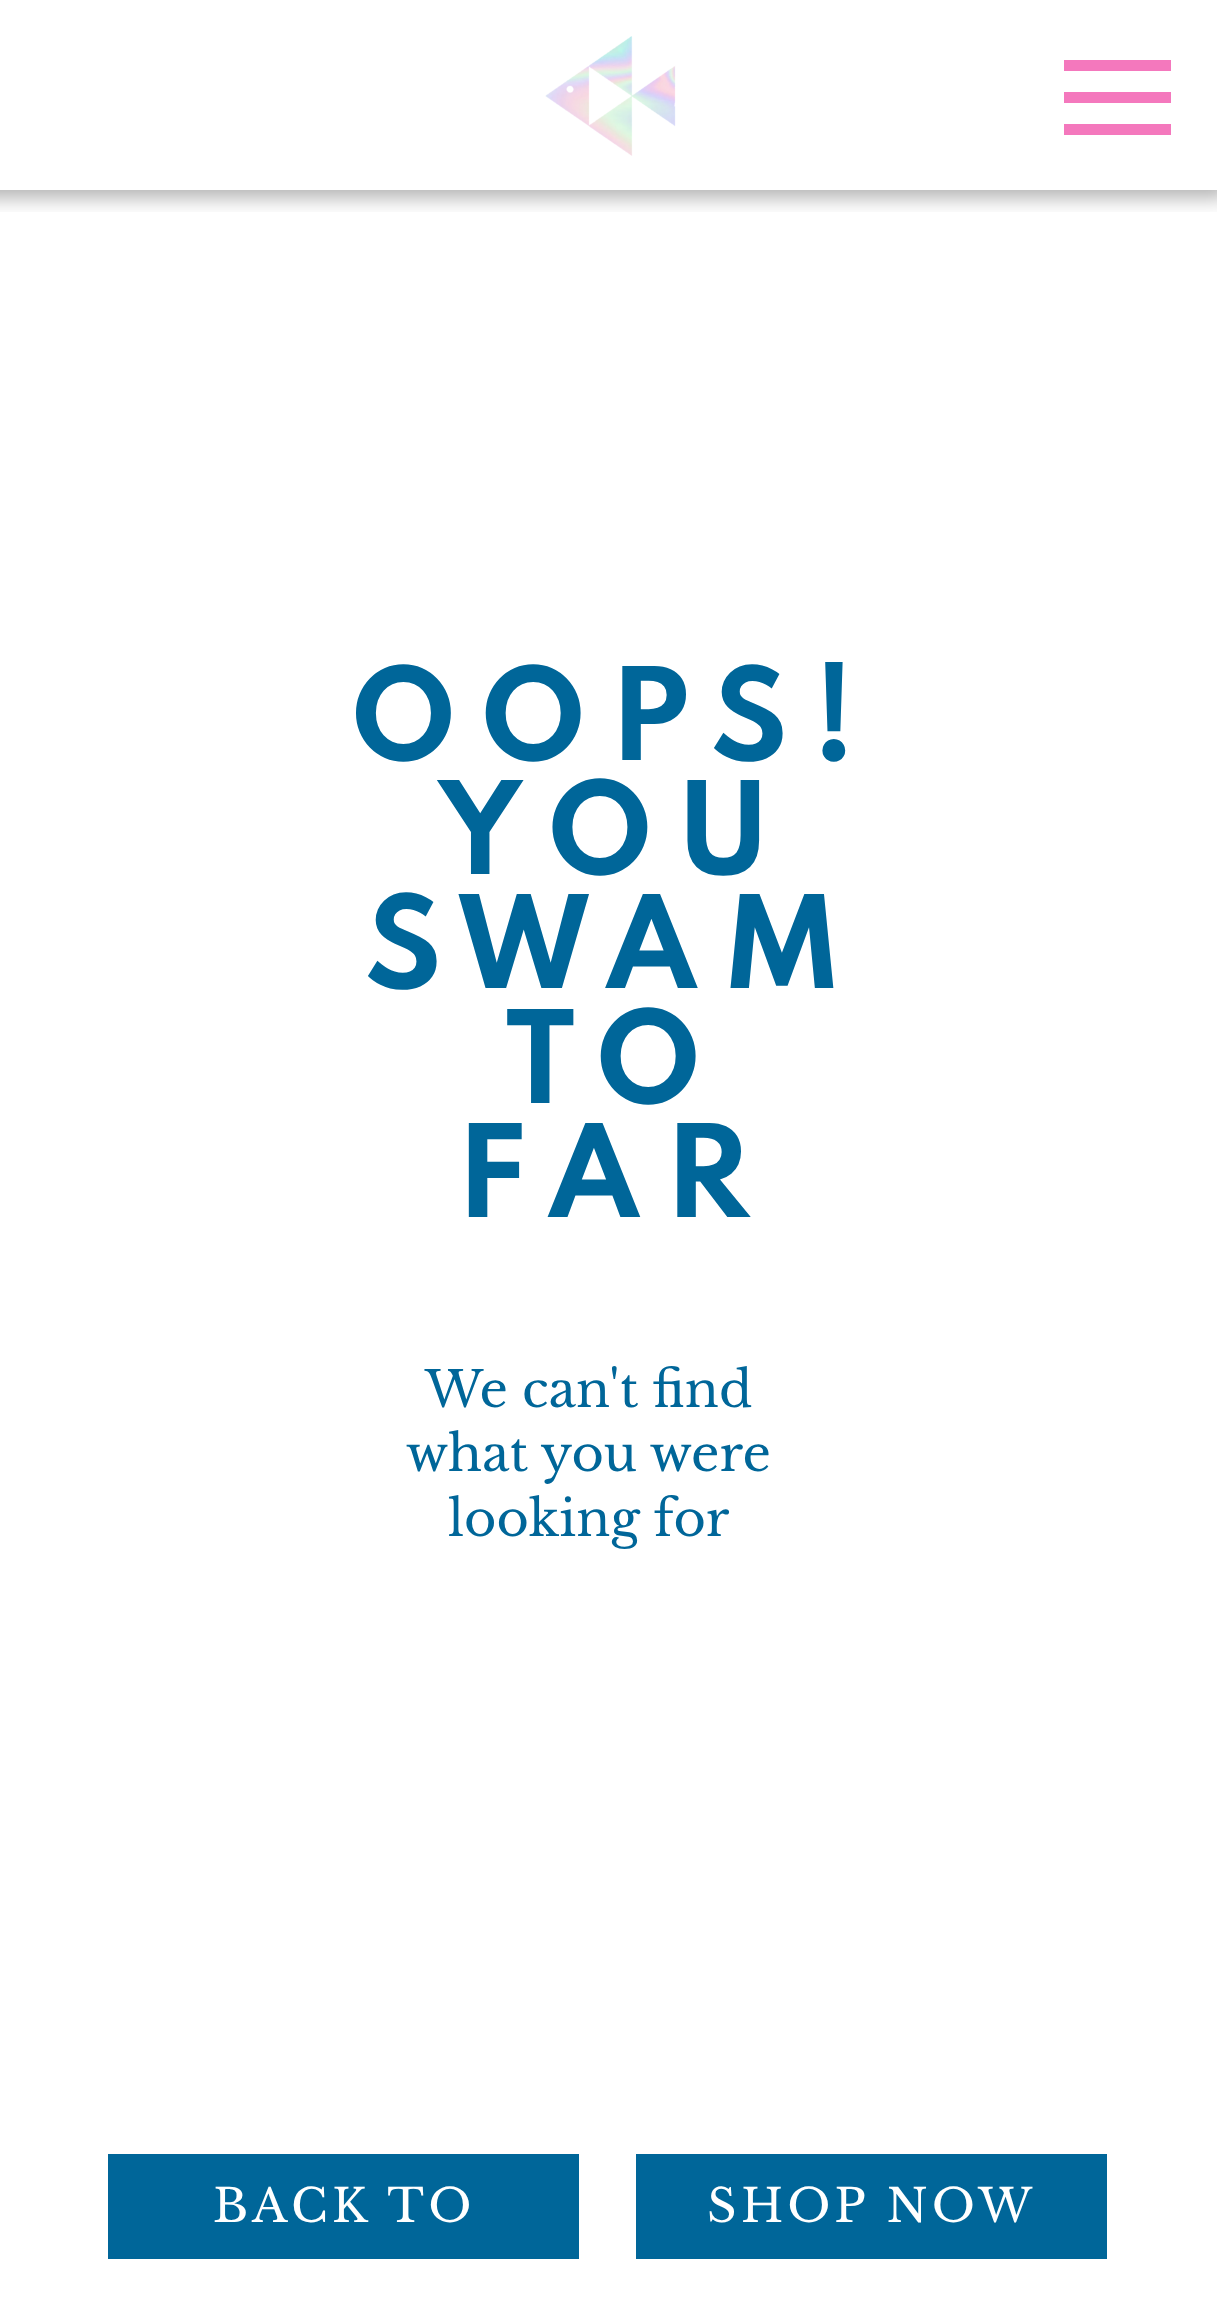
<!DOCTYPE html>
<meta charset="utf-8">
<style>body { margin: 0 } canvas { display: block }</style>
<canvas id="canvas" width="1217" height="2297"></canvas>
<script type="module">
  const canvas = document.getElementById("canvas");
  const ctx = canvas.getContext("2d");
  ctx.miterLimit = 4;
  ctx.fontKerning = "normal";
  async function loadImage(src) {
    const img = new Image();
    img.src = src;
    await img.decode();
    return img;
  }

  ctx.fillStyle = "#ffffff";
  ctx.fillRect(0, 0, 1217, 2297);
  ctx.save();
  ctx.beginPath();
  ctx.rect(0, 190, 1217, 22);
  ctx.clip();
  ctx.fillStyle = "rgba(0, 0, 0, 0.3)";
  ctx.filter = "blur(9.5px)";
  ctx.beginPath();
  ctx.rect(-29, -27, 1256, 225);
  ctx.fill();
  ctx.filter = "none";
  ctx.restore();
  ctx.drawImage(await loadImage("img1.png"), 545, 36, 131, 120);
  ctx.fillStyle = "#f478bd";
  ctx.beginPath();
  ctx.moveTo(1064, 92);
  ctx.lineTo(1171, 92);
  ctx.lineTo(1171, 103);
  ctx.lineTo(1064, 103);
  ctx.closePath();
  ctx.moveTo(1064, 60);
  ctx.lineTo(1171, 60);
  ctx.lineTo(1171, 71);
  ctx.lineTo(1064, 71);
  ctx.closePath();
  ctx.moveTo(1064, 124);
  ctx.lineTo(1171, 124);
  ctx.lineTo(1171, 135);
  ctx.lineTo(1064, 135);
  ctx.closePath();
  ctx.fill();
  ctx.letterSpacing = "23px";
  ctx.font = "bold 114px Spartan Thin";
  ctx.fillStyle = "#006699";
  ctx.fillText("OOPS!", 350, 760);
  ctx.fillText("YOU", 437, 874);
  ctx.fillText("SWAM", 365, 988);
  ctx.fillText("TO", 505, 1103);
  ctx.fillText("FAR", 456, 1217);
  ctx.letterSpacing = "0px";
  ctx.font = "49.5px Libre Baskerville";
  ctx.fillText("We can't find", 425, 1407);
  ctx.fillText("what you were", 406, 1471);
  ctx.fillText("looking for", 448, 1536);
  ctx.fillRect(108, 2154, 471, 105);
  ctx.fillRect(636, 2154, 471, 105);
  ctx.letterSpacing = "4.5px";
  ctx.font = "45.75px Libre Baskerville";
  ctx.fillStyle = "#ffffff";
  ctx.fillText("BACK TO", 213, 2222);
  ctx.fillText("SHOP NOW", 707, 2222);
</script>
